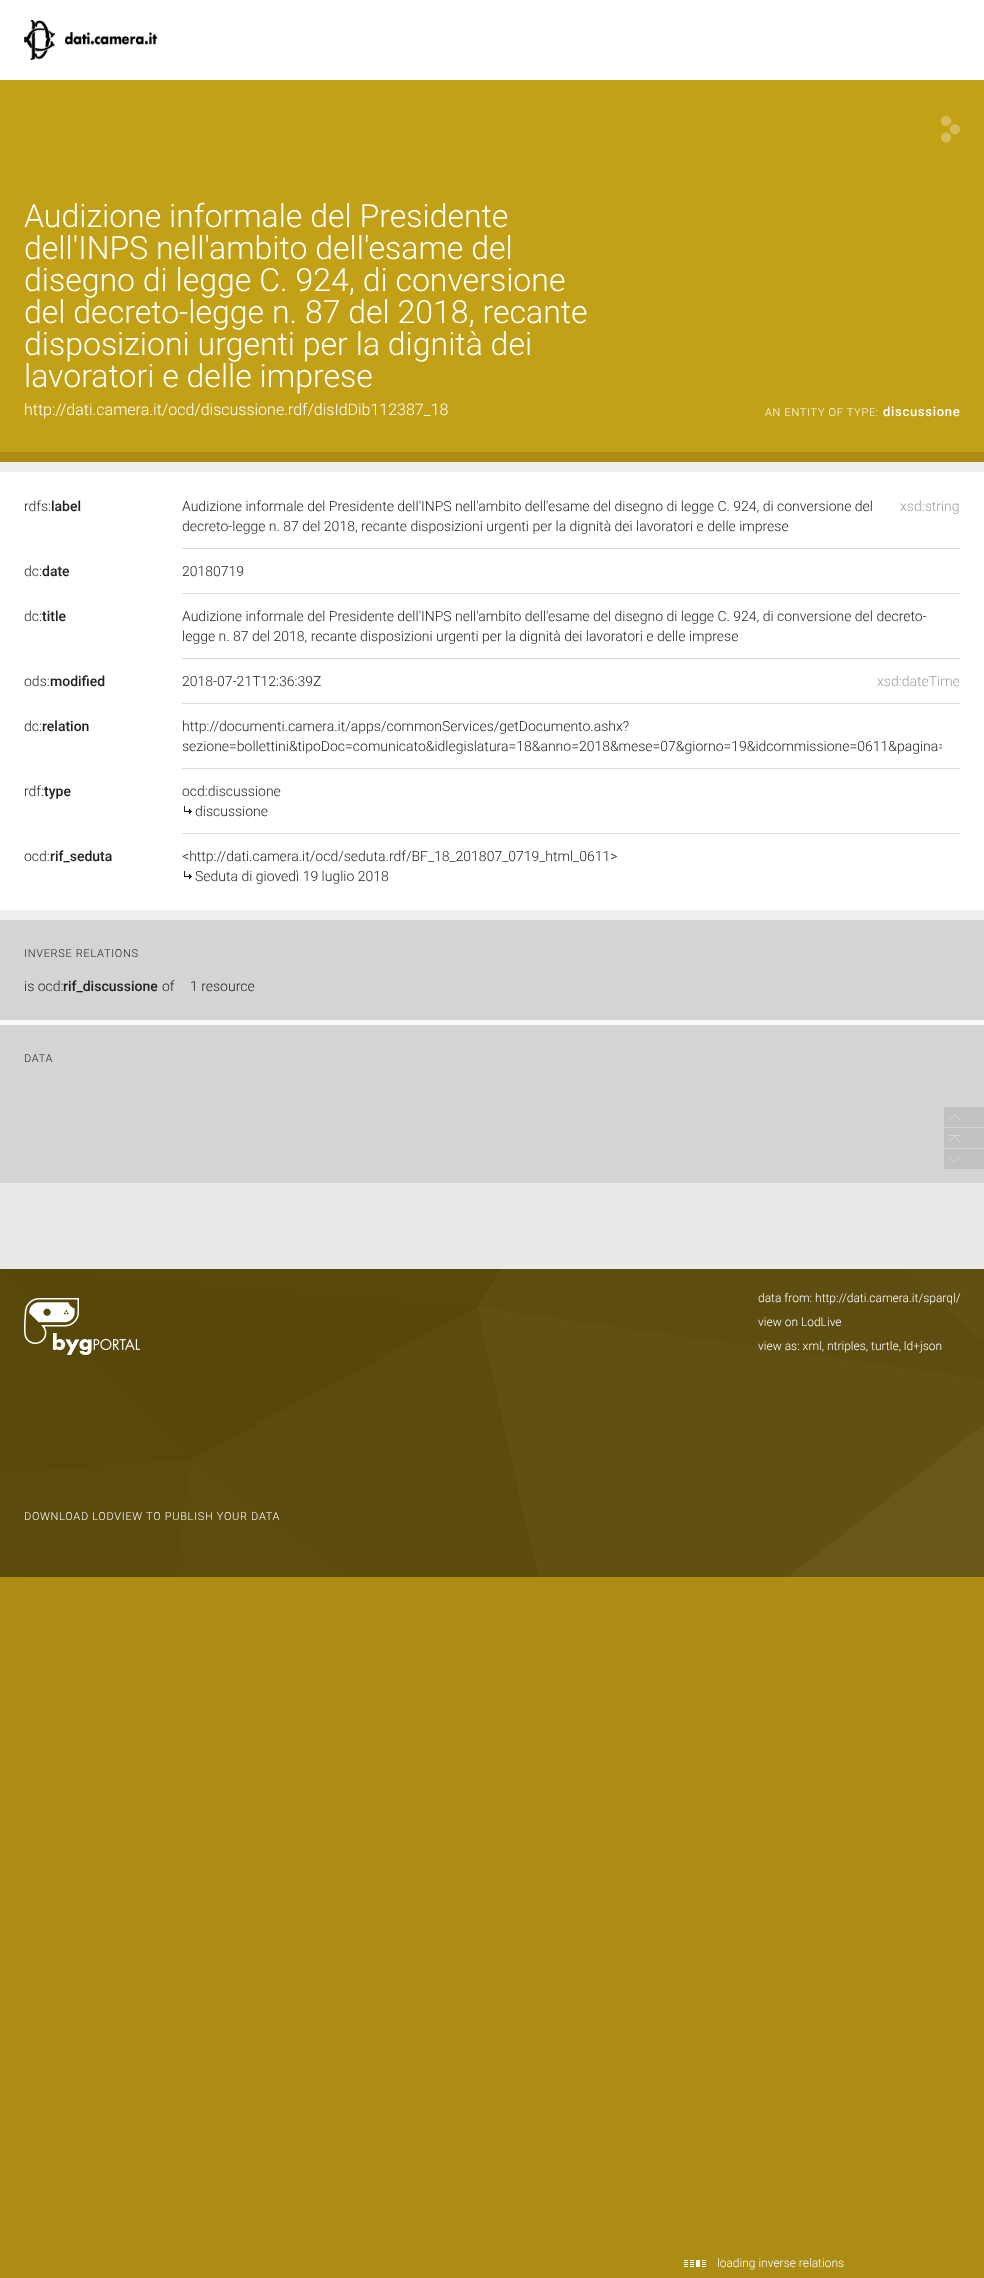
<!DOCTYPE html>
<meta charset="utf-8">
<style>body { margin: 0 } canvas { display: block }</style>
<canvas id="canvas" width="984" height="2278"></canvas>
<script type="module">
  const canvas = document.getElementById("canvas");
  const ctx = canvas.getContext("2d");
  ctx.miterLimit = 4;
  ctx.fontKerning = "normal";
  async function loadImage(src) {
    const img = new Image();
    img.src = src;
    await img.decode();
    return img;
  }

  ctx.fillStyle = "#ac8c13";
  ctx.fillRect(0, 0, 984, 2278);
  ctx.fillStyle = "#ffffff";
  ctx.fillRect(0, 0, 984, 80);
  ctx.drawImage(await loadImage("img1.png"), 24, 20, 134, 40);
  ctx.fillStyle = "#c3a116";
  ctx.fillRect(0, 80, 984, 372);
  ctx.font = "300 32px Roboto";
  ctx.fillStyle = "#ffffff";
  ctx.fillText("Audizione informale del Presidente", 24, 227);
  ctx.fillText("dell'INPS nell'ambito dell'esame del", 24, 259);
  ctx.fillText("disegno di legge C. 924, di conversione", 24, 291);
  ctx.fillText("del decreto-legge n. 87 del 2018, recante", 24, 323);
  ctx.fillText("disposizioni urgenti per la dignità dei", 24, 355);
  ctx.fillText("lavoratori e delle imprese", 24, 387);
  ctx.drawImage(await loadImage("img2.png"), 941, 116, 19, 27);
  ctx.font = "300 16px Roboto";
  ctx.fillText("http://dati.camera.it/ocd/discussione.rdf/disIdDib112387_18", 24, 415);
  ctx.letterSpacing = "0.7px";
  ctx.font = "300 11px Roboto";
  ctx.fillText("AN ENTITY OF TYPE:", 765, 416);
  ctx.font = "500 13px Roboto";
  ctx.fillText("discussione", 883, 416);
  ctx.fillStyle = "#eeeeee";
  ctx.fillRect(0, 462, 984, 10);
  ctx.fillStyle = "#ffffff";
  ctx.fillRect(0, 472, 984, 438);
  ctx.letterSpacing = "0px";
  ctx.font = "300 14px Roboto";
  ctx.fillStyle = "#212121";
  ctx.fillText("rdfs:", 24, 511);
  ctx.font = "500 14px Roboto";
  ctx.fillText("label", 51, 511);
  ctx.fillStyle = "#dbdbdb";
  ctx.fillRect(182, 548, 778, 1);
  ctx.font = "300 14px Roboto";
  ctx.fillStyle = "#212121";
  ctx.fillText("Audizione informale del Presidente dell'INPS nell'ambito dell'esame del disegno di legge C. 924, di conversione del", 182, 511);
  ctx.fillStyle = "#9e9e9e";
  ctx.fillText("xsd:string", 900, 511);
  ctx.fillStyle = "#212121";
  ctx.fillText("decreto-legge n. 87 del 2018, recante disposizioni urgenti per la dignità dei lavoratori e delle imprese", 182, 531);
  ctx.fillText("dc:", 24, 576);
  ctx.font = "500 14px Roboto";
  ctx.fillText("date", 42, 576);
  ctx.fillStyle = "#dbdbdb";
  ctx.fillRect(182, 593, 778, 1);
  ctx.font = "300 14px Roboto";
  ctx.fillStyle = "#212121";
  ctx.fillText("20180719", 182, 576);
  ctx.fillText("dc:", 24, 621);
  ctx.font = "500 14px Roboto";
  ctx.fillText("title", 42, 621);
  ctx.fillStyle = "#dbdbdb";
  ctx.fillRect(182, 658, 778, 1);
  ctx.font = "300 14px Roboto";
  ctx.fillStyle = "#212121";
  ctx.fillText("Audizione informale del Presidente dell'INPS nell'ambito dell'esame del disegno di legge C. 924, di conversione del decreto-", 182, 621);
  ctx.fillText("legge n. 87 del 2018, recante disposizioni urgenti per la dignità dei lavoratori e delle imprese", 182, 641);
  ctx.fillText("ods:", 24, 686);
  ctx.font = "500 14px Roboto";
  ctx.fillText("modified", 50, 686);
  ctx.fillStyle = "#dbdbdb";
  ctx.fillRect(182, 703, 778, 1);
  ctx.font = "300 14px Roboto";
  ctx.fillStyle = "#212121";
  ctx.fillText("2018-07-21T12:36:39Z", 182, 686);
  ctx.fillStyle = "#9e9e9e";
  ctx.fillText("xsd:dateTime", 877, 686);
  ctx.fillStyle = "#212121";
  ctx.fillText("dc:", 24, 731);
  ctx.font = "500 14px Roboto";
  ctx.fillText("relation", 42, 731);
  ctx.fillStyle = "#dbdbdb";
  ctx.fillRect(182, 768, 778, 1);
  ctx.font = "300 14px Roboto";
  ctx.fillStyle = "#212121";
  ctx.fillText("http://documenti.camera.it/apps/commonServices/getDocumento.ashx?", 182, 731);
  ctx.save();
  ctx.beginPath();
  ctx.rect(182, 716, 760, 40);
  ctx.clip();
  ctx.fillText("sezione=bollettini&tipoDoc=comunicato&idlegislatura=18&anno=2018&mese=07&giorno=19&idcommissione=0611&pagina=", 182, 751);
  ctx.restore();
  ctx.fillText("rdf:", 24, 796);
  ctx.font = "500 14px Roboto";
  ctx.fillText("type", 44, 796);
  ctx.fillStyle = "#dbdbdb";
  ctx.fillRect(182, 833, 778, 1);
  ctx.font = "300 14px Roboto";
  ctx.fillStyle = "#212121";
  ctx.fillText("ocd:discussione", 182, 796);
  ctx.drawImage(await loadImage("img3.png"), 184, 806, 8, 8);
  ctx.fillText("discussione", 195, 816);
  ctx.fillText("ocd:", 24, 861);
  ctx.font = "500 14px Roboto";
  ctx.fillText("rif_seduta", 50, 861);
  ctx.font = "300 14px Roboto";
  ctx.fillText("<http://dati.camera.it/ocd/seduta.rdf/BF_18_201807_0719_html_0611>", 182, 861);
  ctx.drawImage(await loadImage("img3.png"), 184, 871, 8, 8);
  ctx.fillText("Seduta di giovedì 19 luglio 2018", 195, 881);
  ctx.fillStyle = "#eeeeee";
  ctx.fillRect(0, 910, 984, 10);
  ctx.fillStyle = "#d4d4d4";
  ctx.fillRect(0, 920, 984, 100);
  ctx.letterSpacing = "0.7px";
  ctx.font = "300 11px Roboto";
  ctx.fillStyle = "#212121";
  ctx.fillText("INVERSE RELATIONS", 24, 957);
  ctx.letterSpacing = "0px";
  ctx.font = "300 14px Roboto";
  ctx.fillText("is ocd:", 24, 991);
  ctx.font = "500 14px Roboto";
  ctx.fillText("rif_discussione", 63, 991);
  ctx.font = "300 14px Roboto";
  ctx.fillText("of", 162, 991);
  ctx.fillText("1 resource", 190, 991);
  ctx.fillStyle = "#fafafa";
  ctx.fillRect(0, 1020, 984, 5);
  ctx.fillStyle = "#d4d4d4";
  ctx.fillRect(0, 1025, 984, 158);
  ctx.letterSpacing = "0.7px";
  ctx.font = "300 11px Roboto";
  ctx.fillStyle = "#212121";
  ctx.fillText("DATA", 24, 1062);
  ctx.fillStyle = "#e9e9e9";
  ctx.fillRect(0, 1183, 984, 86);
  ctx.drawImage(await loadImage("img4.png"), 944, 1107, 40, 20);
  ctx.drawImage(await loadImage("img5.png"), 944, 1128, 40, 20);
  ctx.drawImage(await loadImage("img6.png"), 944, 1149, 40, 20);
  ctx.drawImage(await loadImage("img7.png"), 0, 1269, 984, 308);
  ctx.letterSpacing = "0px";
  ctx.font = "300 12px Roboto";
  ctx.fillStyle = "#ffffff";
  ctx.fillText("data from: http://dati.camera.it/sparql/", 758, 1302);
  ctx.fillText("view on LodLive", 758, 1326);
  ctx.fillText("view as: xml, ntriples, turtle, ld+json", 758, 1350);
  ctx.drawImage(await loadImage("img8.png"), 24, 1298, 116, 57);
  ctx.letterSpacing = "0.7px";
  ctx.font = "300 11px Roboto";
  ctx.fillText("DOWNLOAD LODVIEW TO PUBLISH YOUR DATA", 24, 1520);
  ctx.drawImage(await loadImage("img9.png"), 684, 2260, 22, 7);
  ctx.letterSpacing = "0px";
  ctx.font = "300 12px Roboto";
  ctx.fillText("loading inverse relations", 717, 2267);
</script>
